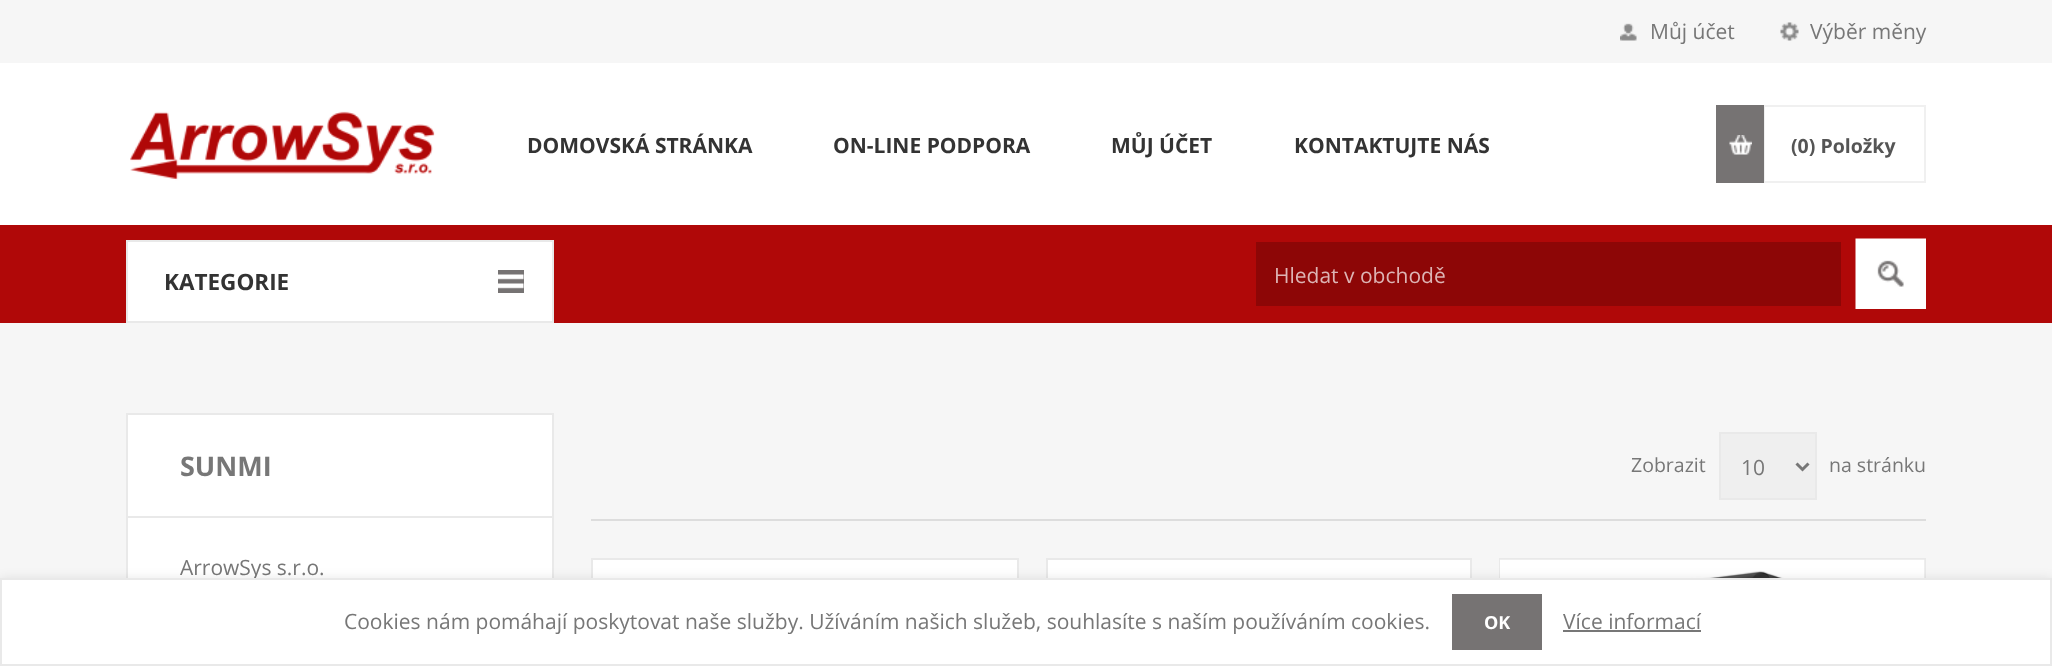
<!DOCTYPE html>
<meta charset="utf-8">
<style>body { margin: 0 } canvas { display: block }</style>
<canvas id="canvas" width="2052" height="666"></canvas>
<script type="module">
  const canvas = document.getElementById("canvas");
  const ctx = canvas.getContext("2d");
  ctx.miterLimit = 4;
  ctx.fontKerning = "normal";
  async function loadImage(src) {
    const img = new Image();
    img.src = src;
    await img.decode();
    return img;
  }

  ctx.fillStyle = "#f6f6f6";
  ctx.fillRect(0, 0, 2052, 666);
  ctx.drawImage(await loadImage("img1.png"), 1620, 23, 17, 18);
  ctx.font = "21px Open Sans";
  ctx.fillStyle = "#777777";
  ctx.fillText("Můj účet", 1650, 39);
  ctx.drawImage(await loadImage("img2.png"), 1780, 22, 19, 19);
  ctx.fillText("Výběr měny", 1810, 39);
  ctx.fillStyle = "#ffffff";
  ctx.fillRect(0, 63, 2052, 162);
  ctx.drawImage(await loadImage("img3.png"), 126, 93, 312, 102);
  ctx.font = "bold 21px Open Sans";
  ctx.fillStyle = "#333333";
  ctx.fillText("DOMOVSKÁ STRÁNKA", 527, 153);
  ctx.fillText("ON-LINE PODPORA", 833, 153);
  ctx.fillText("MŮJ ÚČET", 1111, 153);
  ctx.fillText("KONTAKTUJTE NÁS", 1294, 153);
  ctx.strokeStyle = "#f0f0f0";
  ctx.lineWidth = 2;
  ctx.strokeRect(1764, 106, 161, 76);
  ctx.fillStyle = "#767373";
  ctx.fillRect(1716, 105, 48, 78);
  ctx.drawImage(await loadImage("img4.png"), 1729, 135, 23, 20);
  ctx.font = "bold 19.5px Open Sans";
  ctx.fillStyle = "#555555";
  ctx.fillText("(0) Položky", 1791, 153);
  ctx.fillStyle = "#b00808";
  ctx.fillRect(0, 225, 2052, 98);
  ctx.fillStyle = "#ffffff";
  ctx.beginPath();
  ctx.rect(127, 241, 426, 81);
  ctx.fill();
  ctx.strokeStyle = "#e9e9e9";
  ctx.stroke();
  ctx.font = "bold 22.5px Open Sans";
  ctx.fillStyle = "#333333";
  ctx.fillText("KATEGORIE", 164, 290);
  ctx.fillStyle = "#767373";
  ctx.fillRect(498, 270, 26, 23);
  ctx.drawImage(await loadImage("img5.png"), 498, 274, 26, 15);
  ctx.fillStyle = "#8d0606";
  ctx.fillRect(1256, 242, 585, 64);
  ctx.font = "21px Open Sans";
  ctx.fillStyle = "#ddb4b4";
  ctx.fillText("Hledat v obchodě", 1274, 283);
  ctx.fillStyle = "#767373";
  ctx.fillRect(1877, 260, 27, 27);
  ctx.drawImage(await loadImage("img6.png"), 1855, 238, 71, 71);
  ctx.fillStyle = "#ffffff";
  ctx.beginPath();
  ctx.rect(127, 414, 426, 103);
  ctx.fill();
  ctx.stroke();
  ctx.font = "bold 27px Open Sans";
  ctx.fillStyle = "#777777";
  ctx.fillText("SUNMI", 180, 476);
  ctx.fillStyle = "#ffffff";
  ctx.fillRect(128, 518, 424, 60);
  ctx.strokeRect(127, 517, 426, 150);
  ctx.font = "21px Open Sans";
  ctx.fillStyle = "#777777";
  ctx.fillText("ArrowSys s.r.o.", 180, 575);
  ctx.fillStyle = "#dddddd";
  ctx.fillRect(591, 519, 1335, 2);
  ctx.font = "19.5px Open Sans";
  ctx.fillStyle = "#777777";
  ctx.fillText("Zobrazit", 1631, 472);
  ctx.fillStyle = "#efefef";
  ctx.beginPath();
  ctx.rect(1720, 433, 96, 66);
  ctx.fill();
  ctx.stroke();
  ctx.beginPath();
  ctx.moveTo(1796.5, 463.5);
  ctx.lineTo(1802.5, 469.5);
  ctx.lineTo(1808.5, 463.5);
  ctx.strokeStyle = "#777777";
  ctx.lineWidth = 3;
  ctx.stroke();
  ctx.font = "21px Open Sans";
  ctx.fillStyle = "#777777";
  ctx.fillText("10", 1741, 475);
  ctx.font = "19.5px Open Sans";
  ctx.fillText("na stránku", 1829, 472);
  ctx.fillStyle = "#ffffff";
  ctx.fillRect(593, 560, 424, 18);
  ctx.strokeStyle = "#e9e9e9";
  ctx.lineWidth = 2;
  ctx.strokeRect(592, 559, 426, 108);
  ctx.fillRect(1048, 560, 422, 18);
  ctx.strokeRect(1047, 559, 424, 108);
  ctx.strokeRect(1500, 559, 425, 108);
  ctx.drawImage(await loadImage("img7.png"), 1500, 559, 425, 19);
  ctx.fillStyle = "rgba(0, 0, 0, 0.1)";
  ctx.filter = "blur(6px)";
  ctx.beginPath();
  ctx.rect(0, 579, 2052, 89);
  ctx.fill();
  ctx.filter = "none";
  ctx.fillStyle = "#ffffff";
  ctx.beginPath();
  ctx.rect(1, 579, 2050, 86);
  ctx.fill();
  ctx.stroke();
  ctx.font = "21px Open Sans";
  ctx.fillStyle = "#777777";
  ctx.fillText("Cookies nám pomáhají poskytovat naše služby. Užíváním našich služeb, souhlasíte s naším používáním cookies.", 344, 629);
  ctx.fillStyle = "#767373";
  ctx.fillRect(1452, 594, 90, 56);
  ctx.font = "bold 18px Open Sans";
  ctx.fillStyle = "#ffffff";
  ctx.fillText("OK", 1484, 629);
  ctx.font = "21px Open Sans";
  ctx.fillStyle = "#777777";
  ctx.fillText("Více informací", 1563, 629);
  ctx.fillRect(1563, 630, 138, 2);
</script>
